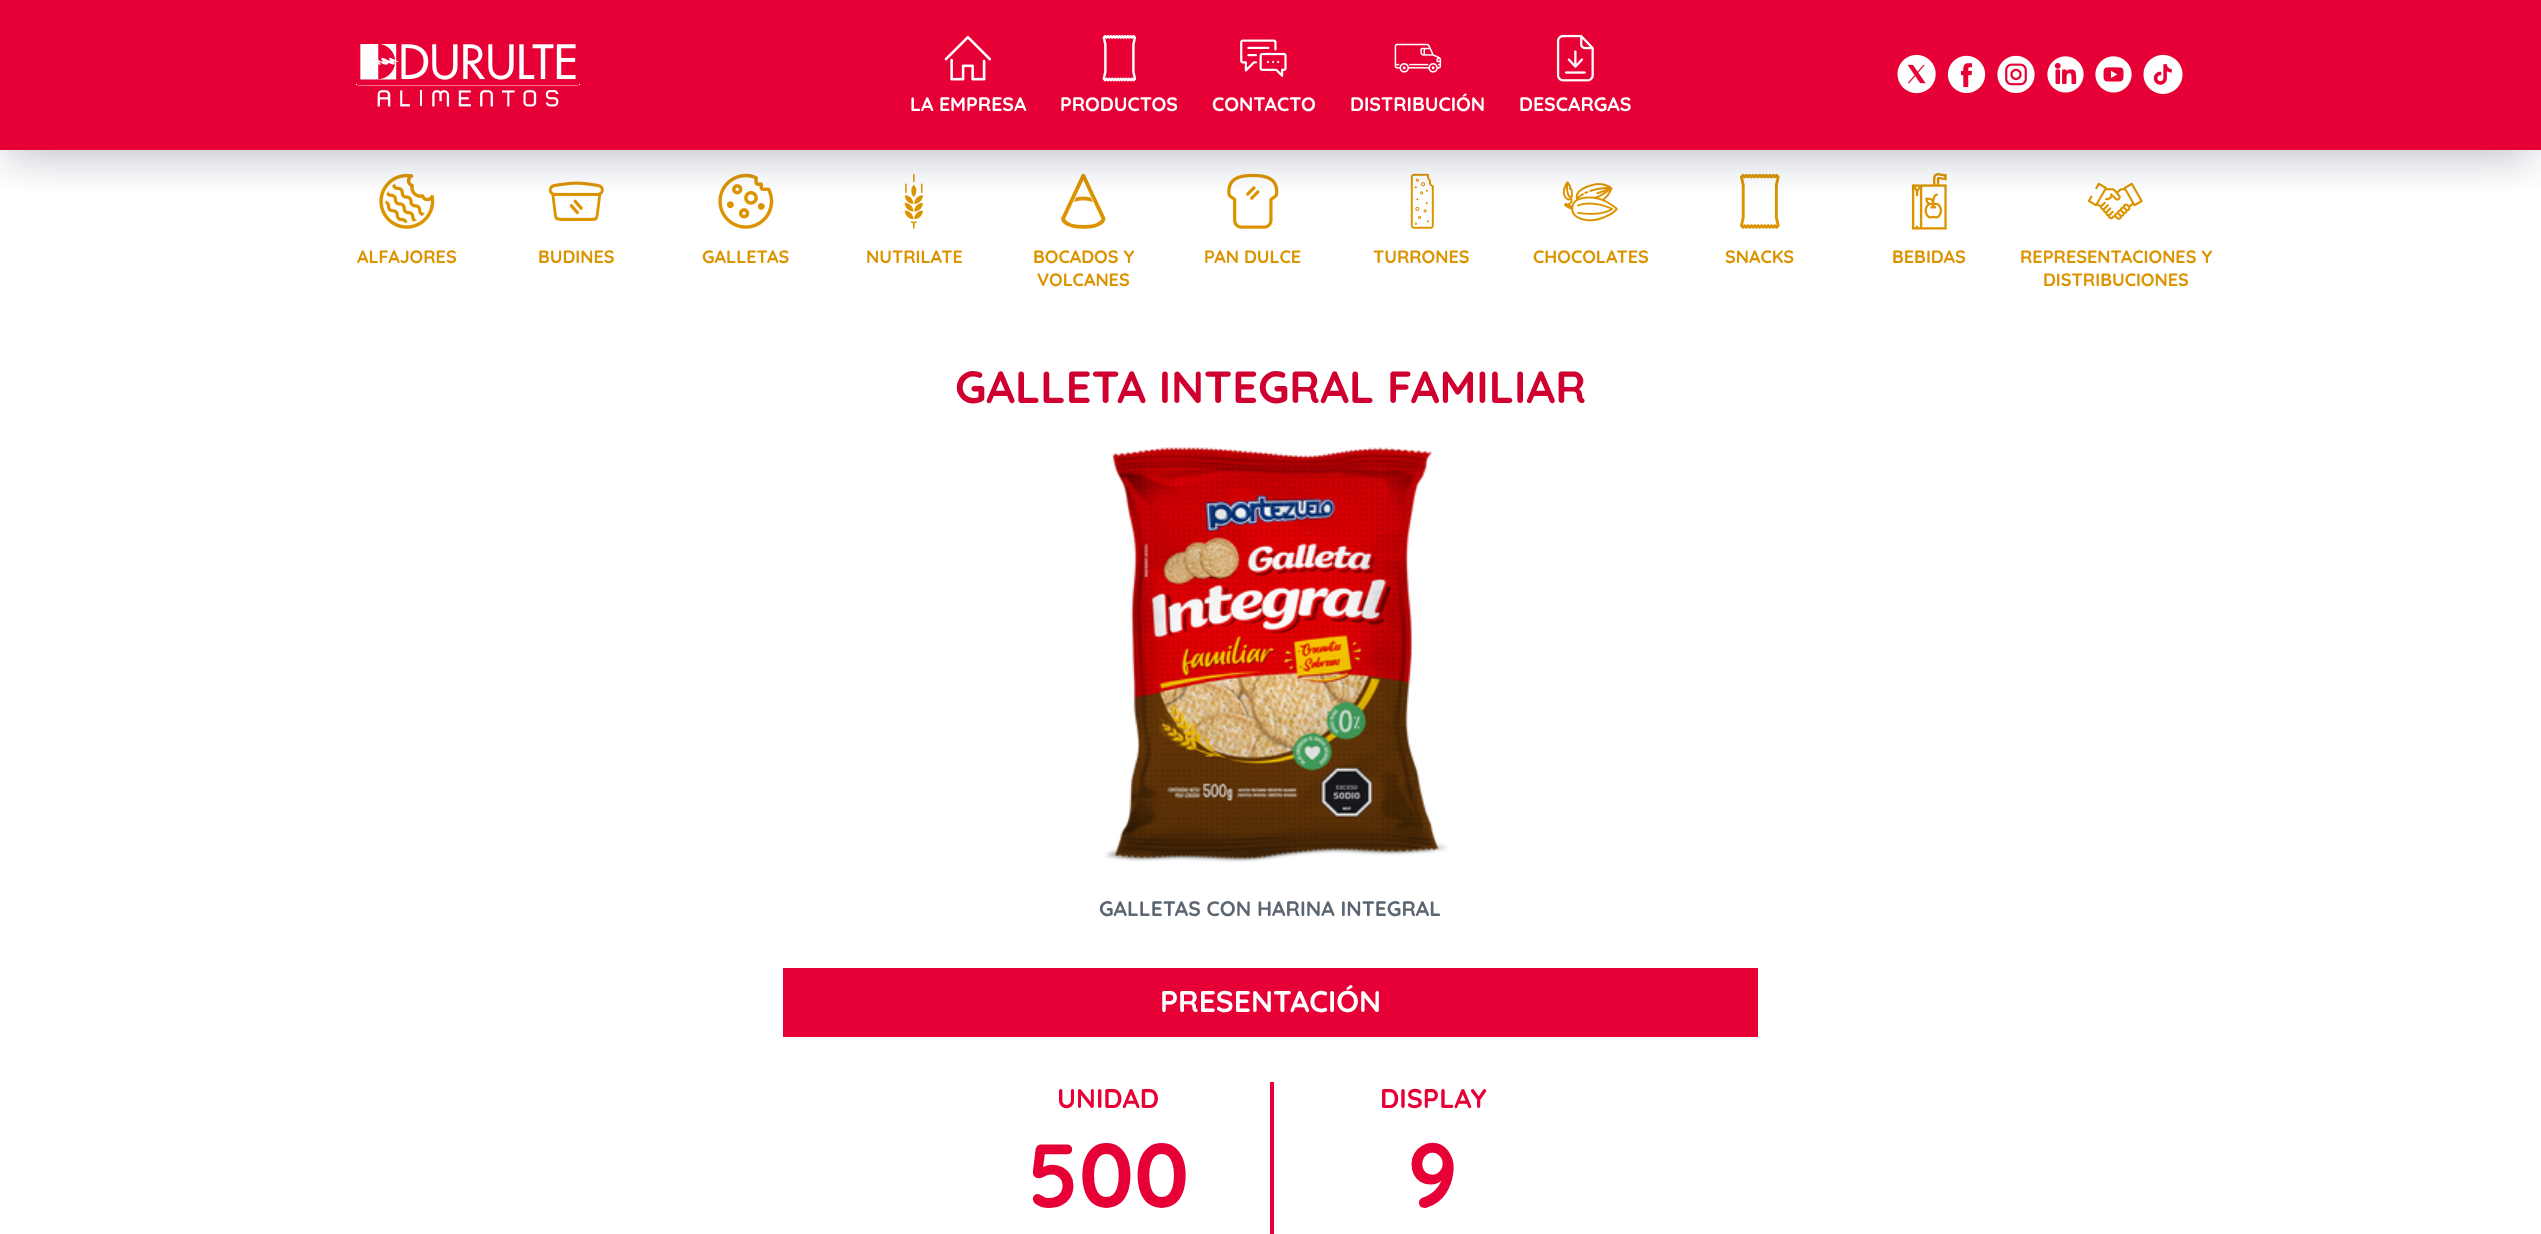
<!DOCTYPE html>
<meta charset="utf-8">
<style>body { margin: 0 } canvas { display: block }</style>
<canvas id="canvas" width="2541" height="1234"></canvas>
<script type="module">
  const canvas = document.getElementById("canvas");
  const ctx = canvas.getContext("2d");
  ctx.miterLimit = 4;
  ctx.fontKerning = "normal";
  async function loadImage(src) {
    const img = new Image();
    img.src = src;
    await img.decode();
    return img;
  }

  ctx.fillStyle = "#e60036";
  ctx.fillRect(0, 0, 2541, 1234);
  ctx.fillStyle = "#ffffff";
  ctx.fillRect(0, 150, 2541, 1084);
  ctx.drawImage(await loadImage("img13.png"), 379, 173, 56, 56);
  ctx.drawImage(await loadImage("img14.png"), 548, 181, 56, 40);
  ctx.drawImage(await loadImage("img15.png"), 718, 173, 56, 56);
  ctx.drawImage(await loadImage("img16.png"), 904, 173, 19, 56);
  ctx.drawImage(await loadImage("img17.png"), 1061, 173, 45, 56);
  ctx.drawImage(await loadImage("img18.png"), 1227, 173, 52, 56);
  ctx.drawImage(await loadImage("img19.png"), 1410, 173, 24, 56);
  ctx.drawImage(await loadImage("img20.png"), 1562, 181, 56, 41);
  ctx.drawImage(await loadImage("img21.png"), 1740, 173, 40, 56);
  ctx.drawImage(await loadImage("img22.png"), 1911, 173, 36, 57);
  ctx.drawImage(await loadImage("img23.png"), 2087, 182, 56, 38);
  ctx.save();
  ctx.beginPath();
  ctx.rect(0, 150, 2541, 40);
  ctx.clip();
  ctx.fillStyle = "rgba(23, 36, 66, 0.3)";
  ctx.filter = "blur(22.5px)";
  ctx.beginPath();
  ctx.rect(6, 21, 2526, 135);
  ctx.fill();
  ctx.filter = "none";
  ctx.restore();
  ctx.drawImage(await loadImage("img1.png"), 356, 44, 224, 63);
  ctx.drawImage(await loadImage("img2.png"), 1897, 54, 39, 40);
  ctx.drawImage(await loadImage("img3.png"), 1947, 55, 39, 38);
  ctx.drawImage(await loadImage("img4.png"), 1997, 55, 38, 38);
  ctx.drawImage(await loadImage("img5.png"), 2047, 56, 37, 37);
  ctx.drawImage(await loadImage("img6.png"), 2095, 56, 37, 37);
  ctx.drawImage(await loadImage("img7.png"), 2143, 54, 40, 40);
  ctx.drawImage(await loadImage("img8.png"), 944, 35, 48, 46);
  ctx.font = "bold 19.5px Quicksand";
  ctx.fillText("LA EMPRESA", 910, 111);
  ctx.drawImage(await loadImage("img9.png"), 1102, 35, 35, 47);
  ctx.fillText("PRODUCTOS", 1060, 111);
  ctx.drawImage(await loadImage("img10.png"), 1240, 39, 47, 38);
  ctx.fillText("CONTACTO", 1212, 111);
  ctx.drawImage(await loadImage("img11.png"), 1394, 43, 48, 30);
  ctx.fillText("DISTRIBUCIÓN", 1350, 111);
  ctx.drawImage(await loadImage("img12.png"), 1556, 34, 38, 48);
  ctx.fillText("DESCARGAS", 1519, 111);
  ctx.font = "bold 18px Quicksand";
  ctx.fillStyle = "#dc9300";
  ctx.fillText("ALFAJORES", 357, 263);
  ctx.fillText("BUDINES", 538, 263);
  ctx.fillText("GALLETAS", 702, 263);
  ctx.fillText("NUTRILATE", 866, 263);
  ctx.fillText("BOCADOS Y", 1033, 263);
  ctx.fillText("VOLCANES", 1037, 286);
  ctx.fillText("PAN DULCE", 1204, 263);
  ctx.fillText("TURRONES", 1373, 263);
  ctx.fillText("CHOCOLATES", 1533, 263);
  ctx.fillText("SNACKS", 1725, 263);
  ctx.fillText("BEBIDAS", 1892, 263);
  ctx.fillText("REPRESENTACIONES Y", 2020, 263);
  ctx.fillText("DISTRIBUCIONES", 2043, 286);
  ctx.font = "bold 45px Quicksand";
  ctx.fillStyle = "#cf0030";
  ctx.fillText("GALLETA INTEGRAL FAMILIAR", 955, 403);
  ctx.drawImage(await loadImage("img24.png"), 1105, 447, 343, 415);
  ctx.font = "bold 21px Quicksand";
  ctx.fillStyle = "#5c6670";
  ctx.fillText("GALLETAS CON HARINA INTEGRAL", 1099, 916);
  ctx.fillStyle = "#e60036";
  ctx.fillRect(783, 968, 975, 69);
  ctx.font = "bold 30px Quicksand";
  ctx.fillStyle = "#ffffff";
  ctx.fillText("PRESENTACIÓN", 1160, 1012);
  ctx.fillStyle = "#e60036";
  ctx.fillRect(1270, 1082, 4, 152);
  ctx.font = "bold 27px Quicksand";
  ctx.fillText("UNIDAD", 1057, 1108);
  ctx.font = "bold 90px Quicksand";
  ctx.fillText("500", 1027, 1207);
  ctx.font = "bold 27px Quicksand";
  ctx.fillText("DISPLAY", 1380, 1108);
  ctx.font = "bold 90px Quicksand";
  ctx.fillText("9", 1407, 1207);
</script>
